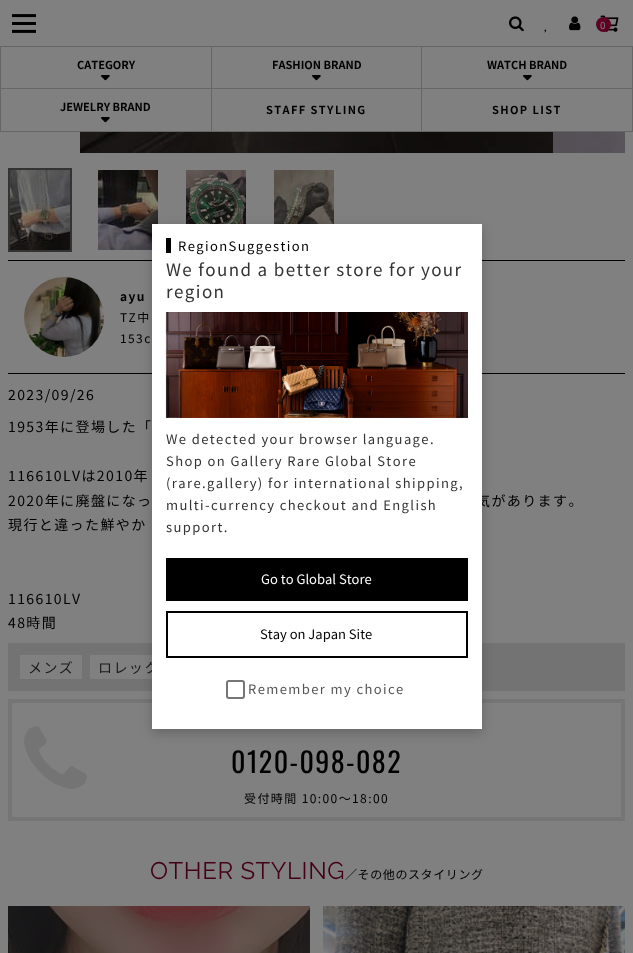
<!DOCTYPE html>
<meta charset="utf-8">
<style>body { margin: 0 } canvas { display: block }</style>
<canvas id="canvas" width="633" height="953"></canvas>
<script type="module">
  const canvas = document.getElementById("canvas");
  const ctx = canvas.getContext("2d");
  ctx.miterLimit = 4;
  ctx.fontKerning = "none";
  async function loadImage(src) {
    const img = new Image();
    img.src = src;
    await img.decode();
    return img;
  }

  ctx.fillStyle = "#808080";
  ctx.fillRect(0, 0, 633, 953);
  ctx.drawImage(await loadImage("img1.png"), 12, 14, 24, 19);
  ctx.drawImage(await loadImage("img2.png"), 509, 16, 15, 15);
  ctx.drawImage(await loadImage("img3.png"), 569, 16, 12, 15);
  ctx.drawImage(await loadImage("img4.png"), 600, 15, 19, 17);
  ctx.fillStyle = "#5e0022";
  ctx.beginPath();
  ctx.arc(603.5, 24.5, 7.5, 0, Math.PI * 2);
  ctx.fill();
  ctx.letterSpacing = "1.4px";
  ctx.font = "10px Noto Sans JP";
  ctx.fillStyle = "#808080";
  ctx.fillText("0", 600, 29);
  ctx.drawImage(await loadImage("img5.png"), 544, 29, 3, 4);
  ctx.fillStyle = "#666666";
  ctx.fillRect(0, 46, 633, 1);
  ctx.fillRect(0, 46, 1, 86);
  ctx.fillRect(211, 47, 1, 85);
  ctx.fillRect(1, 88, 211, 1);
  ctx.letterSpacing = "0px";
  ctx.font = "bold 11px Noto Sans JP";
  ctx.fillStyle = "#000000";
  ctx.fillText("CATEGORY", 77, 69);
  ctx.drawImage(await loadImage("img6.png"), 101, 75, 9, 6);
  ctx.fillStyle = "#666666";
  ctx.fillRect(421, 47, 1, 85);
  ctx.fillRect(212, 88, 210, 1);
  ctx.fillStyle = "#000000";
  ctx.fillText("FASHION BRAND", 272, 69);
  ctx.drawImage(await loadImage("img6.png"), 312, 75, 9, 6);
  ctx.fillStyle = "#666666";
  ctx.fillRect(632, 47, 1, 85);
  ctx.fillRect(422, 88, 211, 1);
  ctx.fillStyle = "#000000";
  ctx.fillText("WATCH BRAND", 487, 69);
  ctx.drawImage(await loadImage("img6.png"), 523, 75, 9, 6);
  ctx.fillStyle = "#666666";
  ctx.fillRect(1, 131, 632, 1);
  ctx.fillStyle = "#000000";
  ctx.fillText("JEWELRY BRAND", 60, 111);
  ctx.drawImage(await loadImage("img6.png"), 101, 117, 9, 6);
  ctx.letterSpacing = "1.4px";
  ctx.fillText("STAFF STYLING", 266, 114);
  ctx.fillText("SHOP LIST", 492, 114);
  ctx.drawImage(await loadImage("img11.png"), 98, 170, 60, 80);
  ctx.drawImage(await loadImage("img12.png"), 186, 170, 60, 54);
  ctx.drawImage(await loadImage("img13.png"), 274, 170, 60, 54);
  ctx.fillRect(8, 260, 617, 1);
  ctx.fillRect(8, 373, 617, 1);
  ctx.fillStyle = "#737373";
  ctx.fillRect(8, 643, 617, 48);
  ctx.fillStyle = "#808080";
  ctx.fillRect(90, 655, 62, 24);
  ctx.strokeStyle = "#757575";
  ctx.lineWidth = 4;
  ctx.strokeRect(10, 701, 613, 118);
  ctx.fillStyle = "rgba(0, 0, 0, 0.2)";
  ctx.filter = "blur(6px)";
  ctx.beginPath();
  ctx.rect(152, 228, 330, 505);
  ctx.fill();
  ctx.filter = "none";
  ctx.font = "14px Noto Sans JP";
  ctx.fillStyle = "#000000";
  ctx.fillText("気があります。", 476, 506);
  ctx.fillStyle = "#1a1a1a";
  ctx.fillText("ロレック", 98, 673);
  ctx.fillStyle = "#ffffff";
  ctx.fillRect(152, 224, 330, 505);
  ctx.fillStyle = "#000000";
  ctx.fillRect(166, 238, 5, 15);
  ctx.font = "13px Noto Sans JP";
  ctx.fillText("RegionSuggestion", 178, 251);
  ctx.font = "17px Noto Sans JP";
  ctx.fillStyle = "#333333";
  ctx.fillText("We found a better store for your", 166, 276);
  ctx.fillText("region", 166, 298);
  ctx.drawImage(await loadImage("img7.png"), 165, 312, 303, 106);
  ctx.font = "13px Noto Sans JP";
  ctx.fillText("We detected your browser language.", 166, 444);
  ctx.fillText("Shop on Gallery Rare Global Store", 166, 466);
  ctx.fillText("(rare.gallery) for international shipping,", 166, 488);
  ctx.fillText("multi-currency checkout and English", 166, 510);
  ctx.fillText("support.", 166, 532);
  ctx.fillStyle = "#000000";
  ctx.fillRect(166, 558, 302, 43);
  ctx.letterSpacing = "0px";
  ctx.fillStyle = "#ffffff";
  ctx.fillText("Go to Global Store", 261, 584);
  ctx.strokeStyle = "#000000";
  ctx.lineWidth = 2;
  ctx.strokeRect(167, 612, 300, 45);
  ctx.fillStyle = "#000000";
  ctx.fillText("Stay on Japan Site", 260, 639);
  ctx.beginPath();
  ctx.roundRect(227, 681, 17, 17, 2);
  ctx.strokeStyle = "#767676";
  ctx.stroke();
  ctx.letterSpacing = "1.4px";
  ctx.fillStyle = "#555555";
  ctx.fillText("Remember my choice", 248, 694);
  ctx.drawImage(await loadImage("img8.png"), 80, 132, 473, 21);
  ctx.drawImage(await loadImage("img9.png"), 553, 132, 72, 21);
  ctx.strokeStyle = "#333333";
  ctx.strokeRect(9, 169, 62, 82);
  ctx.drawImage(await loadImage("img10.png"), 10, 170, 60, 80);
  ctx.drawImage(await loadImage("img14.png"), 24, 277, 80, 80);
  ctx.font = "bold 12px Noto Sans JP";
  ctx.fillStyle = "#000000";
  ctx.fillText("ayu", 120, 301);
  ctx.font = "12px Noto Sans JP";
  ctx.fillText("TZ中", 120, 322);
  ctx.fillText("153c", 120, 343);
  ctx.font = "14px Noto Sans JP";
  ctx.fillText("2023/09/26", 8, 400);
  ctx.fillText("1953年に登場した「", 8, 432);
  ctx.fillText("116610LVは2010年", 8, 481);
  ctx.fillText("2020年に廃盤になっ", 8, 506);
  ctx.fillText("現行と違った鮮やか", 8, 530);
  ctx.fillText("116610LV", 8, 604);
  ctx.fillText("48時間", 8, 628);
  ctx.fillStyle = "#808080";
  ctx.fillRect(20, 655, 62, 24);
  ctx.fillStyle = "#1a1a1a";
  ctx.fillText("メンズ", 28, 673);
  ctx.drawImage(await loadImage("img15.png"), 24, 726, 63, 63);
  ctx.font = "28px Oswald";
  ctx.fillStyle = "#000000";
  ctx.fillText("0120-098-082", 231, 773);
  ctx.font = "12px Noto Sans JP";
  ctx.fillText("受付時間 10:00〜18:00", 244, 803);
  ctx.letterSpacing = "0.6px";
  ctx.font = "24px Raleway";
  ctx.fillStyle = "#440019";
  ctx.fillText("OTHER STYLING", 150, 879);
  ctx.font = "12px Noto Sans JP";
  ctx.fillStyle = "#000000";
  ctx.fillText("／その他のスタイリング", 345, 879);
  ctx.drawImage(await loadImage("img16.png"), 8, 906, 302, 47);
  ctx.drawImage(await loadImage("img17.png"), 323, 906, 302, 47);
</script>
